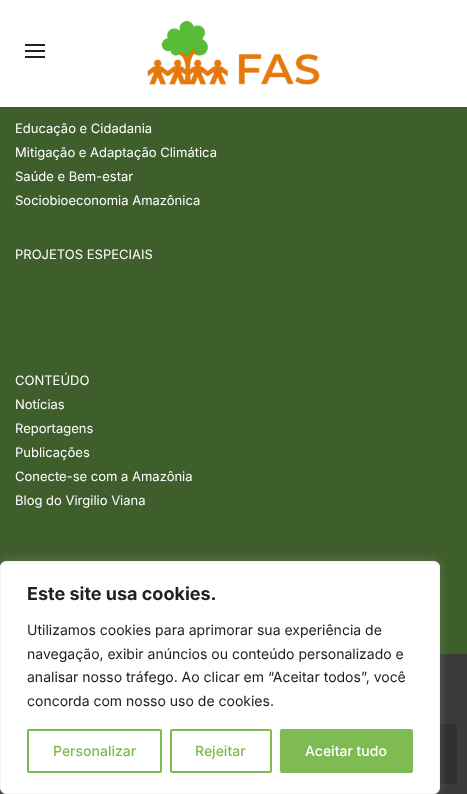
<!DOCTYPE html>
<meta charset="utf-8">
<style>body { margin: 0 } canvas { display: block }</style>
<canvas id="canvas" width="467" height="794"></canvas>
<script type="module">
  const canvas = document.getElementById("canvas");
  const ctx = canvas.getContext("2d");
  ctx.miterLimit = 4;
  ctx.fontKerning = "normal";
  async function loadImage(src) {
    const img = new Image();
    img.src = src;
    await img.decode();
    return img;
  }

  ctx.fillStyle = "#3e5e2b";
  ctx.fillRect(0, 0, 467, 794);
  ctx.fillStyle = "#ffffff";
  ctx.fillRect(0, 0, 467, 107);
  ctx.fillStyle = "#222222";
  ctx.fillRect(25, 50, 20, 2);
  ctx.fillRect(25, 44, 20, 2);
  ctx.fillRect(25, 56, 20, 2);
  ctx.drawImage(await loadImage("img1.png"), 147, 20, 173, 65);
  ctx.font = "13px Inter";
  ctx.fillStyle = "#ffffff";
  ctx.fillText("Educação e Cidadania", 15, 133);
  ctx.fillText("Mitigação e Adaptação Climática", 15, 157);
  ctx.fillText("Saúde e Bem-estar", 15, 181);
  ctx.fillText("Sociobioeconomia Amazônica", 15, 205);
  ctx.fillText("PROJETOS ESPECIAIS", 15, 259);
  ctx.fillText("CONTEÚDO", 15, 385);
  ctx.fillText("Notícias", 15, 409);
  ctx.fillText("Reportagens", 15, 433);
  ctx.fillText("Publicações", 15, 457);
  ctx.fillText("Conecte-se com a Amazônia", 15, 481);
  ctx.fillText("Blog do Virgilio Viana", 15, 505);
  ctx.fillStyle = "#3a3a3a";
  ctx.fillRect(0, 654, 467, 140);
  ctx.fillStyle = "#313131";
  ctx.fillRect(440, 724, 17, 60);
  ctx.fillStyle = "rgba(172, 171, 171, 0.3)";
  ctx.filter = "blur(5px)";
  ctx.beginPath();
  ctx.roundRect(0, 560, 440, 233, 6);
  ctx.fill();
  ctx.filter = "none";
  ctx.fillStyle = "#ffffff";
  ctx.beginPath();
  ctx.roundRect(0.5, 561.5, 439, 232, 5.5);
  ctx.fill();
  ctx.strokeStyle = "#f4f4f4";
  ctx.stroke();
  ctx.font = "bold 18px Inter";
  ctx.fillStyle = "#212121";
  ctx.fillText("Este site usa cookies.", 27, 600);
  ctx.font = "14px Inter";
  ctx.fillText("Utilizamos cookies para aprimorar sua experiência de", 27, 635);
  ctx.fillText("navegação, exibir anúncios ou conteúdo personalizado e", 27, 659);
  ctx.fillText("analisar nosso tráfego. Ao clicar em “Aceitar todos”, você", 27, 682);
  ctx.fillText("concorda com nosso uso de cookies.", 27, 706);
  ctx.beginPath();
  ctx.roundRect(28, 730, 133, 42, 1);
  ctx.strokeStyle = "#7ebb52";
  ctx.lineWidth = 2;
  ctx.stroke();
  ctx.font = "500 14px Inter";
  ctx.fillStyle = "#7ebb52";
  ctx.fillText("Personalizar", 53, 756);
  ctx.beginPath();
  ctx.roundRect(171, 730, 100, 42, 1);
  ctx.stroke();
  ctx.fillText("Rejeitar", 195, 756);
  ctx.beginPath();
  ctx.roundRect(281, 730, 131, 42, 1);
  ctx.fill();
  ctx.stroke();
  ctx.fillStyle = "#ffffff";
  ctx.fillText("Aceitar tudo", 305, 756);
</script>
